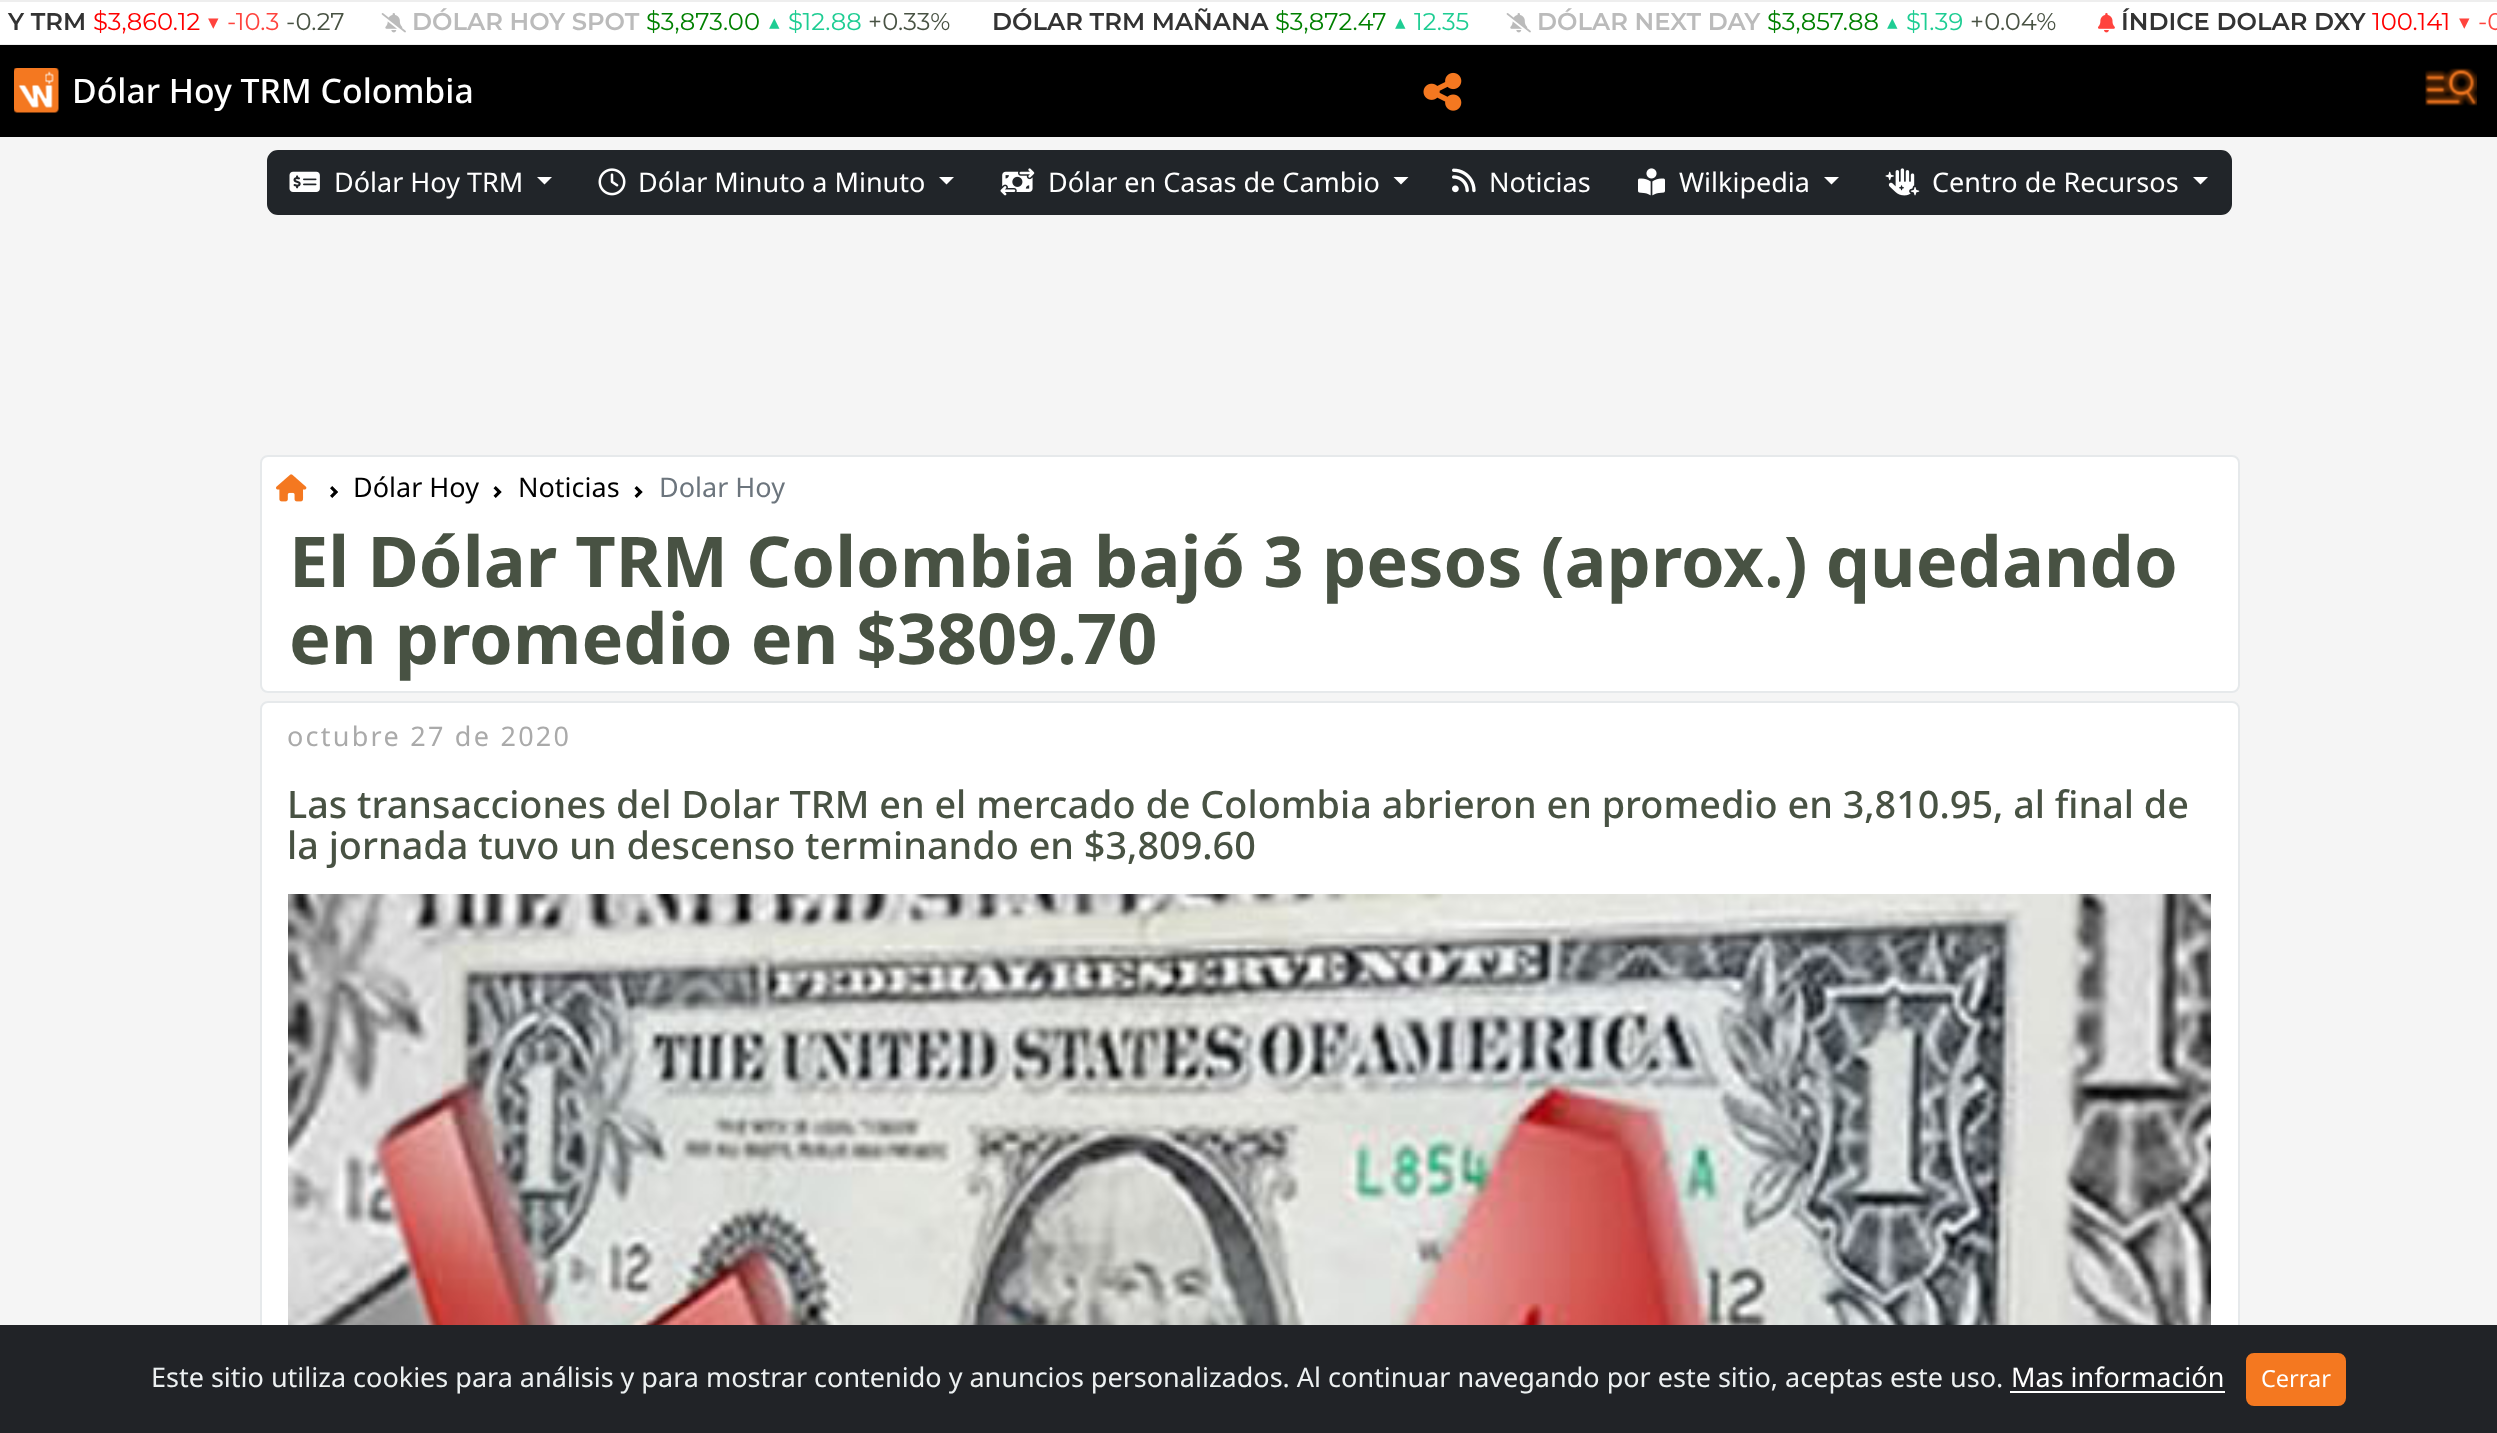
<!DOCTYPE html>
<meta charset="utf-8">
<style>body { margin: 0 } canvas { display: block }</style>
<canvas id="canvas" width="2497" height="1433"></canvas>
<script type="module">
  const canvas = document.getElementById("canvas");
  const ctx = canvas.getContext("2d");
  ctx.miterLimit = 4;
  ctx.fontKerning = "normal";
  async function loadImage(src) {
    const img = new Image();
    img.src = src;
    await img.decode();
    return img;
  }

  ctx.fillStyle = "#f5f5f5";
  ctx.fillRect(0, 0, 2497, 1433);
  ctx.fillStyle = "#ffffff";
  ctx.fillRect(0, 2, 2497, 42);
  ctx.fillStyle = "#eeeeee";
  ctx.fillRect(0, 0, 2497, 2);
  ctx.fillRect(0, 44, 2497, 1);
  ctx.font = "600 24.25px Montserrat";
  ctx.fillStyle = "#333333";
  ctx.fillText("Y TRM", 8, 30);
  ctx.font = "24.25px Montserrat";
  ctx.fillStyle = "#ff0000";
  ctx.fillText("$3,860.12", 93, 30);
  ctx.fillStyle = "#ff433d";
  ctx.fillText("▼ -10.3", 206, 30);
  ctx.fillStyle = "#485243";
  ctx.fillText("-0.27", 286, 30);
  ctx.drawImage(await loadImage("img1.png"), 381, 13, 25, 20);
  ctx.font = "600 24.25px Montserrat";
  ctx.fillStyle = "#bbbbbb";
  ctx.fillText("DÓLAR HOY SPOT", 412, 30);
  ctx.font = "24.25px Montserrat";
  ctx.fillStyle = "#008000";
  ctx.fillText("$3,873.00", 646, 30);
  ctx.fillStyle = "#1ecd93";
  ctx.fillText("▲ $12.88", 767, 30);
  ctx.fillStyle = "#485243";
  ctx.fillText("+0.33%", 868, 30);
  ctx.font = "600 24.25px Montserrat";
  ctx.fillStyle = "#333333";
  ctx.fillText("DÓLAR TRM MAÑANA", 992, 30);
  ctx.font = "24.25px Montserrat";
  ctx.fillStyle = "#008000";
  ctx.fillText("$3,872.47", 1275, 30);
  ctx.fillStyle = "#1ecd93";
  ctx.fillText("▲ 12.35", 1393, 30);
  ctx.drawImage(await loadImage("img2.png"), 1506, 13, 25, 20);
  ctx.font = "600 24.25px Montserrat";
  ctx.fillStyle = "#bbbbbb";
  ctx.fillText("DÓLAR NEXT DAY", 1537, 30);
  ctx.font = "24.25px Montserrat";
  ctx.fillStyle = "#008000";
  ctx.fillText("$3,857.88", 1767, 30);
  ctx.fillStyle = "#1ecd93";
  ctx.fillText("▲ $1.39", 1885, 30);
  ctx.fillStyle = "#485243";
  ctx.fillText("+0.04%", 1970, 30);
  ctx.drawImage(await loadImage("img3.png"), 2098, 13, 17, 20);
  ctx.font = "600 24.25px Montserrat";
  ctx.fillStyle = "#333333";
  ctx.fillText("ÍNDICE DOLAR DXY", 2121, 30);
  ctx.font = "24.25px Montserrat";
  ctx.fillStyle = "#ff0000";
  ctx.fillText("100.141", 2372, 30);
  ctx.fillStyle = "#ff433d";
  ctx.fillText("▼ -0", 2457, 30);
  ctx.fillStyle = "#000000";
  ctx.fillRect(0, 45, 2497, 92);
  ctx.drawImage(await loadImage("img4.png"), 14, 68, 45, 45);
  ctx.font = "500 33.75px Noto Sans";
  ctx.fillStyle = "#ffffff";
  ctx.fillText("Dólar Hoy TRM Colombia", 72, 103);
  ctx.drawImage(await loadImage("img5.png"), 1423, 72, 39, 39);
  ctx.drawImage(await loadImage("img6.png"), 2425, 68, 52, 38);
  ctx.fillStyle = "#212529";
  ctx.beginPath();
  ctx.roundRect(268, 151, 307, 63, [10, 0, 0, 10]);
  ctx.fill();
  ctx.strokeStyle = "#212529";
  ctx.lineWidth = 2;
  ctx.stroke();
  ctx.drawImage(await loadImage("img7.png"), 289, 171, 31, 21);
  ctx.font = "27px Noto Sans";
  ctx.fillStyle = "#ffffff";
  ctx.fillText("Dólar Hoy TRM", 334, 192);
  ctx.beginPath();
  ctx.moveTo(537, 177);
  ctx.lineTo(552, 177);
  ctx.lineTo(544.5, 184.5);
  ctx.closePath();
  ctx.fill();
  ctx.fillStyle = "#212529";
  ctx.fillRect(576, 150, 1286, 65);
  ctx.drawImage(await loadImage("img8.png"), 598, 168, 28, 28);
  ctx.fillStyle = "#ffffff";
  ctx.fillText("Dólar Minuto a Minuto", 638, 192);
  ctx.beginPath();
  ctx.moveTo(939, 177);
  ctx.lineTo(954, 177);
  ctx.lineTo(946.5, 184.5);
  ctx.closePath();
  ctx.fill();
  ctx.drawImage(await loadImage("img9.png"), 1000, 168, 35, 28);
  ctx.fillText("Dólar en Casas de Cambio", 1048, 192);
  ctx.beginPath();
  ctx.moveTo(1393.5, 177);
  ctx.lineTo(1408.5, 177);
  ctx.lineTo(1401, 184.5);
  ctx.closePath();
  ctx.fill();
  ctx.drawImage(await loadImage("img10.png"), 1452, 168, 24, 25);
  ctx.fillText("Noticias", 1489, 192);
  ctx.drawImage(await loadImage("img11.png"), 1638, 168, 27, 28);
  ctx.fillText("Wilkipedia", 1679, 192);
  ctx.beginPath();
  ctx.moveTo(1824, 177);
  ctx.lineTo(1839, 177);
  ctx.lineTo(1831.5, 184.5);
  ctx.closePath();
  ctx.fill();
  ctx.fillStyle = "#212529";
  ctx.beginPath();
  ctx.roundRect(1863, 151, 368, 63, [0, 10, 10, 0]);
  ctx.fill();
  ctx.stroke();
  ctx.drawImage(await loadImage("img12.png"), 1885, 168, 35, 28);
  ctx.fillStyle = "#ffffff";
  ctx.fillText("Centro de Recursos", 1932, 192);
  ctx.beginPath();
  ctx.moveTo(2193, 177);
  ctx.lineTo(2208, 177);
  ctx.lineTo(2200.5, 184.5);
  ctx.closePath();
  ctx.fill();
  ctx.beginPath();
  ctx.roundRect(261, 456, 1978, 236, 7);
  ctx.fill();
  ctx.strokeStyle = "#e6e9eb";
  ctx.stroke();
  ctx.drawImage(await loadImage("img13.png"), 276, 474, 31, 28);
  ctx.drawImage(await loadImage("img14.png"), 330, 486, 8, 12);
  ctx.fillStyle = "#000000";
  ctx.fillText("Dólar Hoy", 353, 497);
  ctx.drawImage(await loadImage("img15.png"), 493, 486, 9, 12);
  ctx.fillText("Noticias", 518, 497);
  ctx.drawImage(await loadImage("img15.png"), 634, 486, 9, 12);
  ctx.fillStyle = "#6c757d";
  ctx.fillText("Dolar Hoy", 659, 497);
  ctx.font = "bold 70.2px Noto Sans";
  ctx.fillStyle = "#485243";
  ctx.fillText("El Dólar TRM Colombia bajó 3 pesos (aprox.) quedando", 289, 587);
  ctx.fillText("en promedio en $3809.70", 289, 664);
  ctx.fillStyle = "#ffffff";
  ctx.beginPath();
  ctx.roundRect(261, 702, 1978, 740, 7);
  ctx.fill();
  ctx.stroke();
  ctx.letterSpacing = "2.25px";
  ctx.font = "27px Noto Sans";
  ctx.fillStyle = "#aaaaaa";
  ctx.fillText("octubre 27 de 2020", 287, 746);
  ctx.letterSpacing = "0px";
  ctx.font = "500 37.8px Noto Sans";
  ctx.fillStyle = "#485243";
  ctx.fillText("Las transacciones del Dolar TRM en el mercado de Colombia abrieron en promedio en 3,810.95, al final de", 287, 818);
  ctx.fillText("la jornada tuvo un descenso terminando en $3,809.60", 287, 859);
  ctx.drawImage(await loadImage("img16.png"), 288, 894, 1923, 431);
  ctx.fillStyle = "#212327";
  ctx.fillRect(0, 1325, 2497, 108);
  ctx.font = "27px Noto Sans";
  ctx.fillStyle = "#ecf0f1";
  ctx.fillText("Este sitio utiliza cookies para análisis y para mostrar contenido y anuncios personalizados. Al continuar navegando por este sitio, aceptas este uso.", 151, 1387);
  ctx.fillStyle = "#ffffff";
  ctx.fillText("Mas información", 2011, 1387);
  ctx.fillRect(2010, 1391, 215, 2);
  ctx.fillStyle = "#f47820";
  ctx.beginPath();
  ctx.roundRect(2247, 1354, 98, 51, 7);
  ctx.fill();
  ctx.strokeStyle = "#f47820";
  ctx.stroke();
  ctx.font = "23.5px Noto Sans";
  ctx.fillStyle = "#ffffff";
  ctx.fillText("Cerrar", 2261, 1387);
</script>
